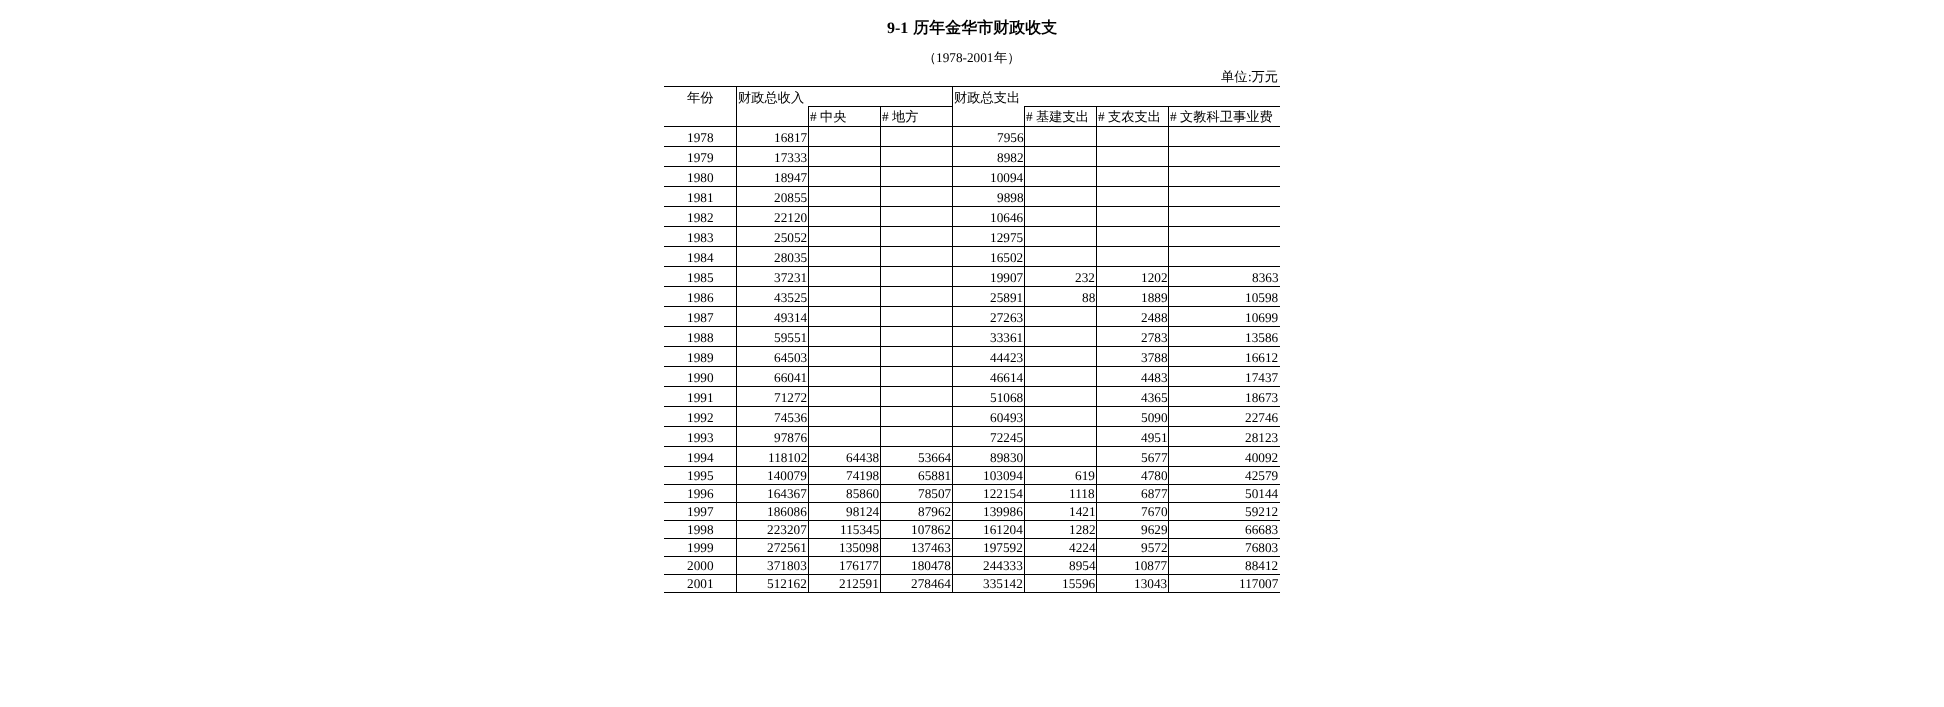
<!DOCTYPE html>
<meta charset="utf-8">
<style>body { margin: 0 } canvas { display: block }</style>
<canvas id="canvas" width="1944" height="707"></canvas>
<script type="module">
  const canvas = document.getElementById("canvas");
  const ctx = canvas.getContext("2d");
  ctx.miterLimit = 4;
  ctx.fontKerning = "normal";

  ctx.fillStyle = "#ffffff";
  ctx.fillRect(0, 0, 1944, 707);
  ctx.font = "bold 16px Liberation Serif";
  ctx.fillStyle = "#000000";
  ctx.fillText("9-1", 887, 33);
  ctx.font = "bold 16px WenQuanYi Zen Hei";
  ctx.fillText("历年金华市财政收支", 913, 33);
  ctx.font = "500 13.25px WenQuanYi Zen Hei";
  ctx.fillText("（", 923, 62);
  ctx.font = "13.25px Liberation Serif";
  ctx.fillText("1978-2001", 936, 62);
  ctx.font = "500 13.25px WenQuanYi Zen Hei";
  ctx.fillText("年）", 994, 62);
  ctx.fillRect(1168, 592, 112, 1);
  ctx.fillRect(1168, 574, 1, 19);
  ctx.fillRect(1168, 574, 112, 1);
  ctx.fillRect(1168, 556, 1, 19);
  ctx.fillRect(1168, 556, 112, 1);
  ctx.fillRect(1168, 538, 1, 19);
  ctx.fillRect(1168, 538, 112, 1);
  ctx.fillRect(1168, 520, 1, 19);
  ctx.fillRect(1168, 520, 112, 1);
  ctx.fillRect(1168, 502, 1, 19);
  ctx.fillRect(1168, 502, 112, 1);
  ctx.fillRect(1168, 484, 1, 19);
  ctx.fillRect(1168, 484, 112, 1);
  ctx.fillRect(1168, 466, 1, 19);
  ctx.fillRect(1168, 466, 112, 1);
  ctx.fillRect(1168, 446, 1, 21);
  ctx.fillRect(1168, 446, 112, 1);
  ctx.fillRect(1168, 426, 1, 21);
  ctx.fillRect(1168, 426, 112, 1);
  ctx.fillRect(1168, 406, 1, 21);
  ctx.fillRect(1168, 406, 112, 1);
  ctx.fillRect(1168, 386, 1, 21);
  ctx.fillRect(1168, 386, 112, 1);
  ctx.fillRect(1168, 366, 1, 21);
  ctx.fillRect(1168, 366, 112, 1);
  ctx.fillRect(1168, 346, 1, 21);
  ctx.fillRect(1168, 346, 112, 1);
  ctx.fillRect(1168, 326, 1, 21);
  ctx.fillRect(1168, 326, 112, 1);
  ctx.fillRect(1168, 306, 1, 21);
  ctx.fillRect(1168, 306, 112, 1);
  ctx.fillRect(1168, 286, 1, 21);
  ctx.fillRect(1168, 286, 112, 1);
  ctx.fillRect(1168, 266, 1, 21);
  ctx.fillRect(1168, 266, 112, 1);
  ctx.fillRect(1168, 246, 1, 21);
  ctx.fillRect(1168, 246, 112, 1);
  ctx.fillRect(1168, 226, 1, 21);
  ctx.fillRect(1168, 226, 112, 1);
  ctx.fillRect(1168, 206, 1, 21);
  ctx.fillRect(1168, 206, 112, 1);
  ctx.fillRect(1168, 186, 1, 21);
  ctx.fillRect(1168, 186, 112, 1);
  ctx.fillRect(1168, 166, 1, 21);
  ctx.fillRect(1168, 166, 112, 1);
  ctx.fillRect(1168, 146, 1, 21);
  ctx.fillRect(1168, 146, 112, 1);
  ctx.fillRect(1168, 126, 1, 21);
  ctx.fillRect(1168, 126, 112, 1);
  ctx.fillRect(1168, 106, 1, 21);
  ctx.fillRect(1096, 592, 73, 1);
  ctx.fillRect(1096, 574, 1, 19);
  ctx.fillRect(1096, 574, 73, 1);
  ctx.fillRect(1096, 556, 1, 19);
  ctx.fillRect(1096, 556, 73, 1);
  ctx.fillRect(1096, 538, 1, 19);
  ctx.fillRect(1096, 538, 73, 1);
  ctx.fillRect(1096, 520, 1, 19);
  ctx.fillRect(1096, 520, 73, 1);
  ctx.fillRect(1096, 502, 1, 19);
  ctx.fillRect(1096, 502, 73, 1);
  ctx.fillRect(1096, 484, 1, 19);
  ctx.fillRect(1096, 484, 73, 1);
  ctx.fillRect(1096, 466, 1, 19);
  ctx.fillRect(1096, 466, 73, 1);
  ctx.fillRect(1096, 446, 1, 21);
  ctx.fillRect(1096, 446, 73, 1);
  ctx.fillRect(1096, 426, 1, 21);
  ctx.fillRect(1096, 426, 73, 1);
  ctx.fillRect(1096, 406, 1, 21);
  ctx.fillRect(1096, 406, 73, 1);
  ctx.fillRect(1096, 386, 1, 21);
  ctx.fillRect(1096, 386, 73, 1);
  ctx.fillRect(1096, 366, 1, 21);
  ctx.fillRect(1096, 366, 73, 1);
  ctx.fillRect(1096, 346, 1, 21);
  ctx.fillRect(1096, 346, 73, 1);
  ctx.fillRect(1096, 326, 1, 21);
  ctx.fillRect(1096, 326, 73, 1);
  ctx.fillRect(1096, 306, 1, 21);
  ctx.fillRect(1096, 306, 73, 1);
  ctx.fillRect(1096, 286, 1, 21);
  ctx.fillRect(1096, 286, 73, 1);
  ctx.fillRect(1096, 266, 1, 21);
  ctx.fillRect(1096, 266, 73, 1);
  ctx.fillRect(1096, 246, 1, 21);
  ctx.fillRect(1096, 246, 73, 1);
  ctx.fillRect(1096, 226, 1, 21);
  ctx.fillRect(1096, 226, 73, 1);
  ctx.fillRect(1096, 206, 1, 21);
  ctx.fillRect(1096, 206, 73, 1);
  ctx.fillRect(1096, 186, 1, 21);
  ctx.fillRect(1096, 186, 73, 1);
  ctx.fillRect(1096, 166, 1, 21);
  ctx.fillRect(1096, 166, 73, 1);
  ctx.fillRect(1096, 146, 1, 21);
  ctx.fillRect(1096, 146, 73, 1);
  ctx.fillRect(1096, 126, 1, 21);
  ctx.fillRect(1096, 126, 73, 1);
  ctx.fillRect(1096, 106, 1, 21);
  ctx.fillRect(1024, 592, 73, 1);
  ctx.fillRect(1024, 574, 1, 19);
  ctx.fillRect(1024, 574, 73, 1);
  ctx.fillRect(1024, 556, 1, 19);
  ctx.fillRect(1024, 556, 73, 1);
  ctx.fillRect(1024, 538, 1, 19);
  ctx.fillRect(1024, 538, 73, 1);
  ctx.fillRect(1024, 520, 1, 19);
  ctx.fillRect(1024, 520, 73, 1);
  ctx.fillRect(1024, 502, 1, 19);
  ctx.fillRect(1024, 502, 73, 1);
  ctx.fillRect(1024, 484, 1, 19);
  ctx.fillRect(1024, 484, 73, 1);
  ctx.fillRect(1024, 466, 1, 19);
  ctx.fillRect(1024, 466, 73, 1);
  ctx.fillRect(1024, 446, 1, 21);
  ctx.fillRect(1024, 446, 73, 1);
  ctx.fillRect(1024, 426, 1, 21);
  ctx.fillRect(1024, 426, 73, 1);
  ctx.fillRect(1024, 406, 1, 21);
  ctx.fillRect(1024, 406, 73, 1);
  ctx.fillRect(1024, 386, 1, 21);
  ctx.fillRect(1024, 386, 73, 1);
  ctx.fillRect(1024, 366, 1, 21);
  ctx.fillRect(1024, 366, 73, 1);
  ctx.fillRect(1024, 346, 1, 21);
  ctx.fillRect(1024, 346, 73, 1);
  ctx.fillRect(1024, 326, 1, 21);
  ctx.fillRect(1024, 326, 73, 1);
  ctx.fillRect(1024, 306, 1, 21);
  ctx.fillRect(1024, 306, 73, 1);
  ctx.fillRect(1024, 286, 1, 21);
  ctx.fillRect(1024, 286, 73, 1);
  ctx.fillRect(1024, 266, 1, 21);
  ctx.fillRect(1024, 266, 73, 1);
  ctx.fillRect(1024, 246, 1, 21);
  ctx.fillRect(1024, 246, 73, 1);
  ctx.fillRect(1024, 226, 1, 21);
  ctx.fillRect(1024, 226, 73, 1);
  ctx.fillRect(1024, 206, 1, 21);
  ctx.fillRect(1024, 206, 73, 1);
  ctx.fillRect(1024, 186, 1, 21);
  ctx.fillRect(1024, 186, 73, 1);
  ctx.fillRect(1024, 166, 1, 21);
  ctx.fillRect(1024, 166, 73, 1);
  ctx.fillRect(1024, 146, 1, 21);
  ctx.fillRect(1024, 146, 73, 1);
  ctx.fillRect(1024, 126, 1, 21);
  ctx.fillRect(1024, 126, 73, 1);
  ctx.fillRect(1024, 106, 1, 21);
  ctx.fillRect(952, 592, 73, 1);
  ctx.fillRect(952, 574, 1, 19);
  ctx.fillRect(952, 574, 73, 1);
  ctx.fillRect(952, 556, 1, 19);
  ctx.fillRect(952, 556, 73, 1);
  ctx.fillRect(952, 538, 1, 19);
  ctx.fillRect(952, 538, 73, 1);
  ctx.fillRect(952, 520, 1, 19);
  ctx.fillRect(952, 520, 73, 1);
  ctx.fillRect(952, 502, 1, 19);
  ctx.fillRect(952, 502, 73, 1);
  ctx.fillRect(952, 484, 1, 19);
  ctx.fillRect(952, 484, 73, 1);
  ctx.fillRect(952, 466, 1, 19);
  ctx.fillRect(952, 466, 73, 1);
  ctx.fillRect(952, 446, 1, 21);
  ctx.fillRect(952, 446, 73, 1);
  ctx.fillRect(952, 426, 1, 21);
  ctx.fillRect(952, 426, 73, 1);
  ctx.fillRect(952, 406, 1, 21);
  ctx.fillRect(952, 406, 73, 1);
  ctx.fillRect(952, 386, 1, 21);
  ctx.fillRect(952, 386, 73, 1);
  ctx.fillRect(952, 366, 1, 21);
  ctx.fillRect(952, 366, 73, 1);
  ctx.fillRect(952, 346, 1, 21);
  ctx.fillRect(952, 346, 73, 1);
  ctx.fillRect(952, 326, 1, 21);
  ctx.fillRect(952, 326, 73, 1);
  ctx.fillRect(952, 306, 1, 21);
  ctx.fillRect(952, 306, 73, 1);
  ctx.fillRect(952, 286, 1, 21);
  ctx.fillRect(952, 286, 73, 1);
  ctx.fillRect(952, 266, 1, 21);
  ctx.fillRect(952, 266, 73, 1);
  ctx.fillRect(952, 246, 1, 21);
  ctx.fillRect(952, 246, 73, 1);
  ctx.fillRect(952, 226, 1, 21);
  ctx.fillRect(952, 226, 73, 1);
  ctx.fillRect(952, 206, 1, 21);
  ctx.fillRect(952, 206, 73, 1);
  ctx.fillRect(952, 186, 1, 21);
  ctx.fillRect(952, 186, 73, 1);
  ctx.fillRect(952, 166, 1, 21);
  ctx.fillRect(952, 166, 73, 1);
  ctx.fillRect(952, 146, 1, 21);
  ctx.fillRect(952, 146, 73, 1);
  ctx.fillRect(952, 126, 1, 21);
  ctx.fillRect(952, 126, 73, 1);
  ctx.fillRect(952, 86, 1, 41);
  ctx.fillRect(880, 592, 73, 1);
  ctx.fillRect(880, 574, 1, 19);
  ctx.fillRect(880, 574, 73, 1);
  ctx.fillRect(880, 556, 1, 19);
  ctx.fillRect(880, 556, 73, 1);
  ctx.fillRect(880, 538, 1, 19);
  ctx.fillRect(880, 538, 73, 1);
  ctx.fillRect(880, 520, 1, 19);
  ctx.fillRect(880, 520, 73, 1);
  ctx.fillRect(880, 502, 1, 19);
  ctx.fillRect(880, 502, 73, 1);
  ctx.fillRect(880, 484, 1, 19);
  ctx.fillRect(880, 484, 73, 1);
  ctx.fillRect(880, 466, 1, 19);
  ctx.fillRect(880, 466, 73, 1);
  ctx.fillRect(880, 446, 1, 21);
  ctx.fillRect(880, 446, 73, 1);
  ctx.fillRect(880, 426, 1, 21);
  ctx.fillRect(880, 426, 73, 1);
  ctx.fillRect(880, 406, 1, 21);
  ctx.fillRect(880, 406, 73, 1);
  ctx.fillRect(880, 386, 1, 21);
  ctx.fillRect(880, 386, 73, 1);
  ctx.fillRect(880, 366, 1, 21);
  ctx.fillRect(880, 366, 73, 1);
  ctx.fillRect(880, 346, 1, 21);
  ctx.fillRect(880, 346, 73, 1);
  ctx.fillRect(880, 326, 1, 21);
  ctx.fillRect(880, 326, 73, 1);
  ctx.fillRect(880, 306, 1, 21);
  ctx.fillRect(880, 306, 73, 1);
  ctx.fillRect(880, 286, 1, 21);
  ctx.fillRect(880, 286, 73, 1);
  ctx.fillRect(880, 266, 1, 21);
  ctx.fillRect(880, 266, 73, 1);
  ctx.fillRect(880, 246, 1, 21);
  ctx.fillRect(880, 246, 73, 1);
  ctx.fillRect(880, 226, 1, 21);
  ctx.fillRect(880, 226, 73, 1);
  ctx.fillRect(880, 206, 1, 21);
  ctx.fillRect(880, 206, 73, 1);
  ctx.fillRect(880, 186, 1, 21);
  ctx.fillRect(880, 186, 73, 1);
  ctx.fillRect(880, 166, 1, 21);
  ctx.fillRect(880, 166, 73, 1);
  ctx.fillRect(880, 146, 1, 21);
  ctx.fillRect(880, 146, 73, 1);
  ctx.fillRect(880, 126, 1, 21);
  ctx.fillRect(880, 126, 73, 1);
  ctx.fillRect(880, 106, 1, 21);
  ctx.fillRect(808, 592, 73, 1);
  ctx.fillRect(808, 574, 1, 19);
  ctx.fillRect(808, 574, 73, 1);
  ctx.fillRect(808, 556, 1, 19);
  ctx.fillRect(808, 556, 73, 1);
  ctx.fillRect(808, 538, 1, 19);
  ctx.fillRect(808, 538, 73, 1);
  ctx.fillRect(808, 520, 1, 19);
  ctx.fillRect(808, 520, 73, 1);
  ctx.fillRect(808, 502, 1, 19);
  ctx.fillRect(808, 502, 73, 1);
  ctx.fillRect(808, 484, 1, 19);
  ctx.fillRect(808, 484, 73, 1);
  ctx.fillRect(808, 466, 1, 19);
  ctx.fillRect(808, 466, 73, 1);
  ctx.fillRect(808, 446, 1, 21);
  ctx.fillRect(808, 446, 73, 1);
  ctx.fillRect(808, 426, 1, 21);
  ctx.fillRect(808, 426, 73, 1);
  ctx.fillRect(808, 406, 1, 21);
  ctx.fillRect(808, 406, 73, 1);
  ctx.fillRect(808, 386, 1, 21);
  ctx.fillRect(808, 386, 73, 1);
  ctx.fillRect(808, 366, 1, 21);
  ctx.fillRect(808, 366, 73, 1);
  ctx.fillRect(808, 346, 1, 21);
  ctx.fillRect(808, 346, 73, 1);
  ctx.fillRect(808, 326, 1, 21);
  ctx.fillRect(808, 326, 73, 1);
  ctx.fillRect(808, 306, 1, 21);
  ctx.fillRect(808, 306, 73, 1);
  ctx.fillRect(808, 286, 1, 21);
  ctx.fillRect(808, 286, 73, 1);
  ctx.fillRect(808, 266, 1, 21);
  ctx.fillRect(808, 266, 73, 1);
  ctx.fillRect(808, 246, 1, 21);
  ctx.fillRect(808, 246, 73, 1);
  ctx.fillRect(808, 226, 1, 21);
  ctx.fillRect(808, 226, 73, 1);
  ctx.fillRect(808, 206, 1, 21);
  ctx.fillRect(808, 206, 73, 1);
  ctx.fillRect(808, 186, 1, 21);
  ctx.fillRect(808, 186, 73, 1);
  ctx.fillRect(808, 166, 1, 21);
  ctx.fillRect(808, 166, 73, 1);
  ctx.fillRect(808, 146, 1, 21);
  ctx.fillRect(808, 146, 73, 1);
  ctx.fillRect(808, 126, 1, 21);
  ctx.fillRect(808, 126, 73, 1);
  ctx.fillRect(808, 106, 1, 21);
  ctx.fillRect(736, 592, 73, 1);
  ctx.fillRect(736, 574, 1, 19);
  ctx.fillRect(736, 574, 73, 1);
  ctx.fillRect(736, 556, 1, 19);
  ctx.fillRect(736, 556, 73, 1);
  ctx.fillRect(736, 538, 1, 19);
  ctx.fillRect(736, 538, 73, 1);
  ctx.fillRect(736, 520, 1, 19);
  ctx.fillRect(736, 520, 73, 1);
  ctx.fillRect(736, 502, 1, 19);
  ctx.fillRect(736, 502, 73, 1);
  ctx.fillRect(736, 484, 1, 19);
  ctx.fillRect(736, 484, 73, 1);
  ctx.fillRect(736, 466, 1, 19);
  ctx.fillRect(736, 466, 73, 1);
  ctx.fillRect(736, 446, 1, 21);
  ctx.fillRect(736, 446, 73, 1);
  ctx.fillRect(736, 426, 1, 21);
  ctx.fillRect(736, 426, 73, 1);
  ctx.fillRect(736, 406, 1, 21);
  ctx.fillRect(736, 406, 73, 1);
  ctx.fillRect(736, 386, 1, 21);
  ctx.fillRect(736, 386, 73, 1);
  ctx.fillRect(736, 366, 1, 21);
  ctx.fillRect(736, 366, 73, 1);
  ctx.fillRect(736, 346, 1, 21);
  ctx.fillRect(736, 346, 73, 1);
  ctx.fillRect(736, 326, 1, 21);
  ctx.fillRect(736, 326, 73, 1);
  ctx.fillRect(736, 306, 1, 21);
  ctx.fillRect(736, 306, 73, 1);
  ctx.fillRect(736, 286, 1, 21);
  ctx.fillRect(736, 286, 73, 1);
  ctx.fillRect(736, 266, 1, 21);
  ctx.fillRect(736, 266, 73, 1);
  ctx.fillRect(736, 246, 1, 21);
  ctx.fillRect(736, 246, 73, 1);
  ctx.fillRect(736, 226, 1, 21);
  ctx.fillRect(736, 226, 73, 1);
  ctx.fillRect(736, 206, 1, 21);
  ctx.fillRect(736, 206, 73, 1);
  ctx.fillRect(736, 186, 1, 21);
  ctx.fillRect(736, 186, 73, 1);
  ctx.fillRect(736, 166, 1, 21);
  ctx.fillRect(736, 166, 73, 1);
  ctx.fillRect(736, 146, 1, 21);
  ctx.fillRect(736, 146, 73, 1);
  ctx.fillRect(736, 126, 1, 21);
  ctx.fillRect(736, 126, 73, 1);
  ctx.fillRect(736, 86, 1, 41);
  ctx.fillRect(664, 86, 616, 1);
  ctx.fillText("单位 万元", 1221, 81);
  ctx.font = "13.25px Liberation Serif";
  ctx.fillText(":", 1248, 81);
  ctx.font = "500 13.25px WenQuanYi Zen Hei";
  ctx.fillText("年份", 687, 102);
  ctx.fillText("财政总收入", 738, 102);
  ctx.fillText("财政总支出", 954, 102);
  ctx.fillRect(808, 106, 145, 1);
  ctx.fillRect(1024, 106, 256, 1);
  ctx.fillRect(664, 126, 73, 1);
  ctx.font = "13.25px Liberation Serif";
  ctx.fillText("#", 810, 121);
  ctx.font = "500 13.25px WenQuanYi Zen Hei";
  ctx.fillText("中央", 820, 121);
  ctx.font = "13.25px Liberation Serif";
  ctx.fillText("#", 882, 121);
  ctx.font = "500 13.25px WenQuanYi Zen Hei";
  ctx.fillText("地方", 892, 121);
  ctx.font = "13.25px Liberation Serif";
  ctx.fillText("#", 1026, 121);
  ctx.font = "500 13.25px WenQuanYi Zen Hei";
  ctx.fillText("基建支出", 1036, 121);
  ctx.font = "13.25px Liberation Serif";
  ctx.fillText("#", 1098, 121);
  ctx.font = "500 13.25px WenQuanYi Zen Hei";
  ctx.fillText("支农支出", 1108, 121);
  ctx.font = "13.25px Liberation Serif";
  ctx.fillText("#", 1170, 121);
  ctx.font = "500 13.25px WenQuanYi Zen Hei";
  ctx.fillText("文教科卫事业费", 1180, 121);
  ctx.fillRect(664, 146, 73, 1);
  ctx.font = "13.25px Liberation Serif";
  ctx.fillText("1978", 687, 142);
  ctx.fillText("16817", 774, 142);
  ctx.fillText("7956", 997, 142);
  ctx.fillRect(664, 166, 73, 1);
  ctx.fillText("1979", 687, 162);
  ctx.fillText("17333", 774, 162);
  ctx.fillText("8982", 997, 162);
  ctx.fillRect(664, 186, 73, 1);
  ctx.fillText("1980", 687, 182);
  ctx.fillText("18947", 774, 182);
  ctx.fillText("10094", 990, 182);
  ctx.fillRect(664, 206, 73, 1);
  ctx.fillText("1981", 687, 202);
  ctx.fillText("20855", 774, 202);
  ctx.fillText("9898", 997, 202);
  ctx.fillRect(664, 226, 73, 1);
  ctx.fillText("1982", 687, 222);
  ctx.fillText("22120", 774, 222);
  ctx.fillText("10646", 990, 222);
  ctx.fillRect(664, 246, 73, 1);
  ctx.fillText("1983", 687, 242);
  ctx.fillText("25052", 774, 242);
  ctx.fillText("12975", 990, 242);
  ctx.fillRect(664, 266, 73, 1);
  ctx.fillText("1984", 687, 262);
  ctx.fillText("28035", 774, 262);
  ctx.fillText("16502", 990, 262);
  ctx.fillRect(664, 286, 73, 1);
  ctx.fillText("1985", 687, 282);
  ctx.fillText("37231", 774, 282);
  ctx.fillText("19907", 990, 282);
  ctx.fillText("232", 1075, 282);
  ctx.fillText("1202", 1141, 282);
  ctx.fillText("8363", 1252, 282);
  ctx.fillRect(664, 306, 73, 1);
  ctx.fillText("1986", 687, 302);
  ctx.fillText("43525", 774, 302);
  ctx.fillText("25891", 990, 302);
  ctx.fillText("88", 1082, 302);
  ctx.fillText("1889", 1141, 302);
  ctx.fillText("10598", 1245, 302);
  ctx.fillRect(664, 326, 73, 1);
  ctx.fillText("1987", 687, 322);
  ctx.fillText("49314", 774, 322);
  ctx.fillText("27263", 990, 322);
  ctx.fillText("2488", 1141, 322);
  ctx.fillText("10699", 1245, 322);
  ctx.fillRect(664, 346, 73, 1);
  ctx.fillText("1988", 687, 342);
  ctx.fillText("59551", 774, 342);
  ctx.fillText("33361", 990, 342);
  ctx.fillText("2783", 1141, 342);
  ctx.fillText("13586", 1245, 342);
  ctx.fillRect(664, 366, 73, 1);
  ctx.fillText("1989", 687, 362);
  ctx.fillText("64503", 774, 362);
  ctx.fillText("44423", 990, 362);
  ctx.fillText("3788", 1141, 362);
  ctx.fillText("16612", 1245, 362);
  ctx.fillRect(664, 386, 73, 1);
  ctx.fillText("1990", 687, 382);
  ctx.fillText("66041", 774, 382);
  ctx.fillText("46614", 990, 382);
  ctx.fillText("4483", 1141, 382);
  ctx.fillText("17437", 1245, 382);
  ctx.fillRect(664, 406, 73, 1);
  ctx.fillText("1991", 687, 402);
  ctx.fillText("71272", 774, 402);
  ctx.fillText("51068", 990, 402);
  ctx.fillText("4365", 1141, 402);
  ctx.fillText("18673", 1245, 402);
  ctx.fillRect(664, 426, 73, 1);
  ctx.fillText("1992", 687, 422);
  ctx.fillText("74536", 774, 422);
  ctx.fillText("60493", 990, 422);
  ctx.fillText("5090", 1141, 422);
  ctx.fillText("22746", 1245, 422);
  ctx.fillRect(664, 446, 73, 1);
  ctx.fillText("1993", 687, 442);
  ctx.fillText("97876", 774, 442);
  ctx.fillText("72245", 990, 442);
  ctx.fillText("4951", 1141, 442);
  ctx.fillText("28123", 1245, 442);
  ctx.fillRect(664, 466, 73, 1);
  ctx.fillText("1994", 687, 462);
  ctx.fillText("118102", 768, 462);
  ctx.fillText("64438", 846, 462);
  ctx.fillText("53664", 918, 462);
  ctx.fillText("89830", 990, 462);
  ctx.fillText("5677", 1141, 462);
  ctx.fillText("40092", 1245, 462);
  ctx.fillRect(664, 484, 73, 1);
  ctx.fillText("1995", 687, 480);
  ctx.fillText("140079", 767, 480);
  ctx.fillText("74198", 846, 480);
  ctx.fillText("65881", 918, 480);
  ctx.fillText("103094", 983, 480);
  ctx.fillText("619", 1075, 480);
  ctx.fillText("4780", 1141, 480);
  ctx.fillText("42579", 1245, 480);
  ctx.fillRect(664, 502, 73, 1);
  ctx.fillText("1996", 687, 498);
  ctx.fillText("164367", 767, 498);
  ctx.fillText("85860", 846, 498);
  ctx.fillText("78507", 918, 498);
  ctx.fillText("122154", 983, 498);
  ctx.fillText("1118", 1069, 498);
  ctx.fillText("6877", 1141, 498);
  ctx.fillText("50144", 1245, 498);
  ctx.fillRect(664, 520, 73, 1);
  ctx.fillText("1997", 687, 516);
  ctx.fillText("186086", 767, 516);
  ctx.fillText("98124", 846, 516);
  ctx.fillText("87962", 918, 516);
  ctx.fillText("139986", 983, 516);
  ctx.fillText("1421", 1069, 516);
  ctx.fillText("7670", 1141, 516);
  ctx.fillText("59212", 1245, 516);
  ctx.fillRect(664, 538, 73, 1);
  ctx.fillText("1998", 687, 534);
  ctx.fillText("223207", 767, 534);
  ctx.fillText("115345", 840, 534);
  ctx.fillText("107862", 911, 534);
  ctx.fillText("161204", 983, 534);
  ctx.fillText("1282", 1069, 534);
  ctx.fillText("9629", 1141, 534);
  ctx.fillText("66683", 1245, 534);
  ctx.fillRect(664, 556, 73, 1);
  ctx.fillText("1999", 687, 552);
  ctx.fillText("272561", 767, 552);
  ctx.fillText("135098", 839, 552);
  ctx.fillText("137463", 911, 552);
  ctx.fillText("197592", 983, 552);
  ctx.fillText("4224", 1069, 552);
  ctx.fillText("9572", 1141, 552);
  ctx.fillText("76803", 1245, 552);
  ctx.fillRect(664, 574, 73, 1);
  ctx.fillText("2000", 687, 570);
  ctx.fillText("371803", 767, 570);
  ctx.fillText("176177", 839, 570);
  ctx.fillText("180478", 911, 570);
  ctx.fillText("244333", 983, 570);
  ctx.fillText("8954", 1069, 570);
  ctx.fillText("10877", 1134, 570);
  ctx.fillText("88412", 1245, 570);
  ctx.fillRect(664, 592, 73, 1);
  ctx.fillText("2001", 687, 588);
  ctx.fillText("512162", 767, 588);
  ctx.fillText("212591", 839, 588);
  ctx.fillText("278464", 911, 588);
  ctx.fillText("335142", 983, 588);
  ctx.fillText("15596", 1062, 588);
  ctx.fillText("13043", 1134, 588);
  ctx.fillText("117007", 1239, 588);
</script>
